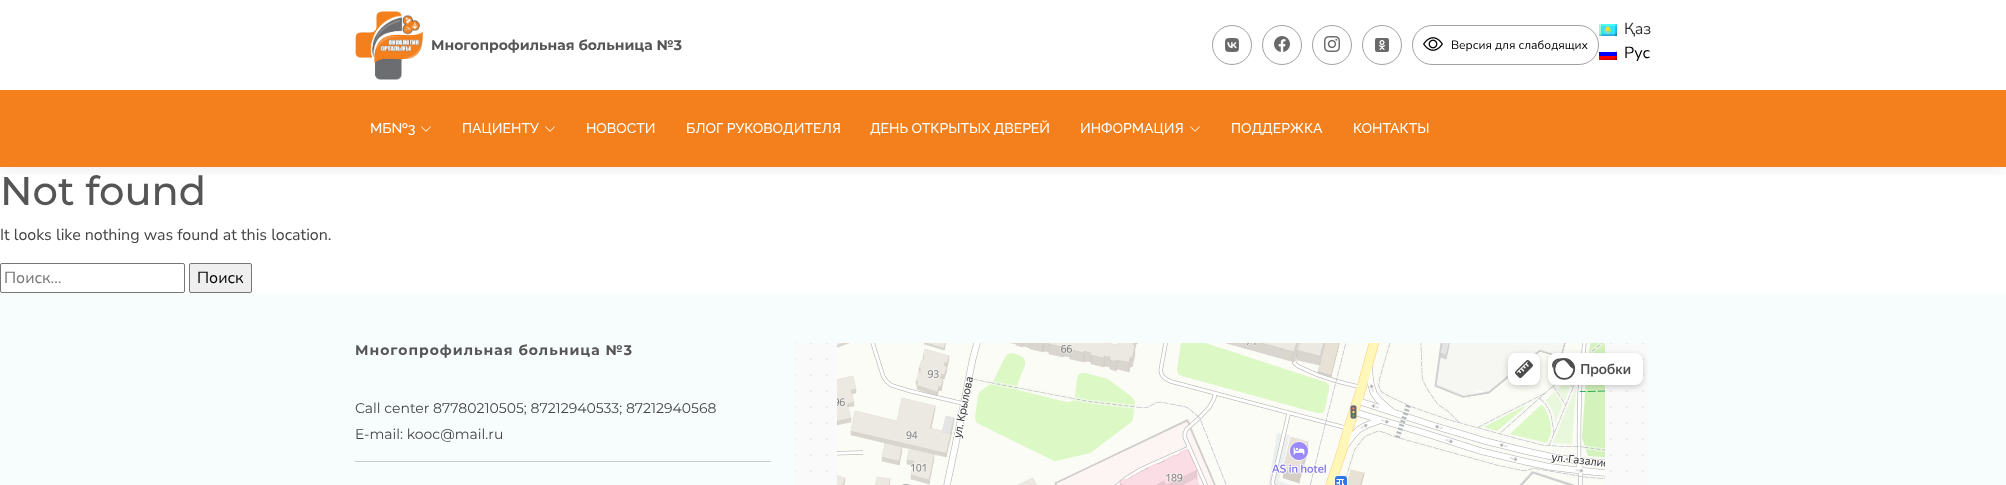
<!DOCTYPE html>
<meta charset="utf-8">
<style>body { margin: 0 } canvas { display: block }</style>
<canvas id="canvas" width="2006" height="485"></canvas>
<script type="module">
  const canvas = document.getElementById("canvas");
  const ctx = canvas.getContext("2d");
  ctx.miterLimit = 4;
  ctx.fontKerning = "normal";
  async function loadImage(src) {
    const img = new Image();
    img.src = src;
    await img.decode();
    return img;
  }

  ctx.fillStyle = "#ffffff";
  ctx.fillRect(0, 0, 2006, 485);
  ctx.save();
  ctx.beginPath();
  ctx.rect(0, 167, 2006, 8);
  ctx.clip();
  ctx.fillStyle = "rgba(0, 0, 0, 0.1)";
  ctx.filter = "blur(9px)";
  ctx.beginPath();
  ctx.rect(0, 0, 2006, 167);
  ctx.fill();
  ctx.filter = "none";
  ctx.restore();
  ctx.drawImage(await loadImage("img1.png"), 355, 11, 68, 69);
  ctx.font = "bold 14px Montserrat";
  ctx.fillStyle = "#555555";
  ctx.fillText("Многопрофильная больница №3", 431, 50);
  ctx.beginPath();
  ctx.arc(1232, 45, 19.5, 0, Math.PI * 2);
  ctx.strokeStyle = "#a2a2a2";
  ctx.stroke();
  ctx.drawImage(await loadImage("img2.png"), 1225, 38, 14, 14);
  ctx.beginPath();
  ctx.arc(1282, 45, 19.5, 0, Math.PI * 2);
  ctx.stroke();
  ctx.drawImage(await loadImage("img3.png"), 1274, 36, 16, 16);
  ctx.beginPath();
  ctx.arc(1332, 45, 19.5, 0, Math.PI * 2);
  ctx.stroke();
  ctx.drawImage(await loadImage("img4.png"), 1324, 36, 16, 16);
  ctx.beginPath();
  ctx.arc(1382, 45, 19.5, 0, Math.PI * 2);
  ctx.stroke();
  ctx.drawImage(await loadImage("img5.png"), 1375, 38, 14, 14);
  ctx.beginPath();
  ctx.roundRect(1412.5, 25.5, 186, 39, 19.5);
  ctx.stroke();
  ctx.drawImage(await loadImage("img6.png"), 1423, 37, 20, 14);
  ctx.font = "12px Nunito Sans";
  ctx.fillStyle = "#000000";
  ctx.fillText("Версия для слабодящих", 1451, 49);
  ctx.drawImage(await loadImage("img7.png"), 1599, 24, 18, 12);
  ctx.font = "16px Nunito Sans";
  ctx.fillStyle = "#333333";
  ctx.fillText("Қаз", 1624, 34);
  ctx.drawImage(await loadImage("img8.png"), 1599, 50, 18, 10);
  ctx.fillStyle = "#000000";
  ctx.fillText("Рус", 1624, 58);
  ctx.fillStyle = "#f4801d";
  ctx.fillRect(0, 90, 2006, 77);
  ctx.font = "500 14px Raleway";
  ctx.fillStyle = "#ffffff";
  ctx.fillText("МБ№3", 370, 133);
  ctx.drawImage(await loadImage("img9.png"), 421, 126, 10, 6);
  ctx.fillText("ПАЦИЕНТУ", 462, 133);
  ctx.drawImage(await loadImage("img9.png"), 545, 126, 10, 6);
  ctx.fillText("НОВОСТИ", 586, 133);
  ctx.fillText("БЛОГ РУКОВОДИТЕЛЯ", 686, 133);
  ctx.fillText("ДЕНЬ ОТКРЫТЫХ ДВЕРЕЙ", 870, 133);
  ctx.fillText("ИНФОРМАЦИЯ", 1080, 133);
  ctx.drawImage(await loadImage("img9.png"), 1190, 126, 10, 6);
  ctx.fillText("ПОДДЕРЖКА", 1231, 133);
  ctx.fillText("КОНТАКТЫ", 1353, 133);
  ctx.font = "500 40px Montserrat";
  ctx.fillStyle = "#555555";
  ctx.fillText("Not found", 0, 205);
  ctx.font = "16px Nunito Sans";
  ctx.fillStyle = "#444444";
  ctx.fillText("It looks like nothing was found at this location.", 0, 240);
  ctx.beginPath();
  ctx.roundRect(0.5, 263.5, 184, 29, 1.5);
  ctx.strokeStyle = "#767676";
  ctx.stroke();
  ctx.fillStyle = "#757575";
  ctx.fillText("Поиск…", 4, 283);
  ctx.fillStyle = "#efefef";
  ctx.beginPath();
  ctx.roundRect(189.5, 263.5, 62, 29, 1.5);
  ctx.fill();
  ctx.stroke();
  ctx.fillStyle = "#000000";
  ctx.fillText("Поиск", 197, 283);
  ctx.fillStyle = "#f7fcfc";
  ctx.fillRect(0, 293, 2006, 192);
  ctx.letterSpacing = "1px";
  ctx.font = "bold 14px Montserrat";
  ctx.fillStyle = "#555555";
  ctx.fillText("Многопрофильная больница №3", 355, 355);
  ctx.letterSpacing = "0px";
  ctx.font = "14px Montserrat";
  ctx.fillStyle = "#444444";
  ctx.fillText("Call center 87780210505; 87212940533; 87212940568", 355, 413);
  ctx.fillText("E-mail: kooc@mail.ru", 355, 439);
  ctx.fillStyle = "#cacece";
  ctx.fillRect(355, 461, 416, 1);
  ctx.drawImage(await loadImage("img10.png"), 795, 343, 853, 142);
</script>
